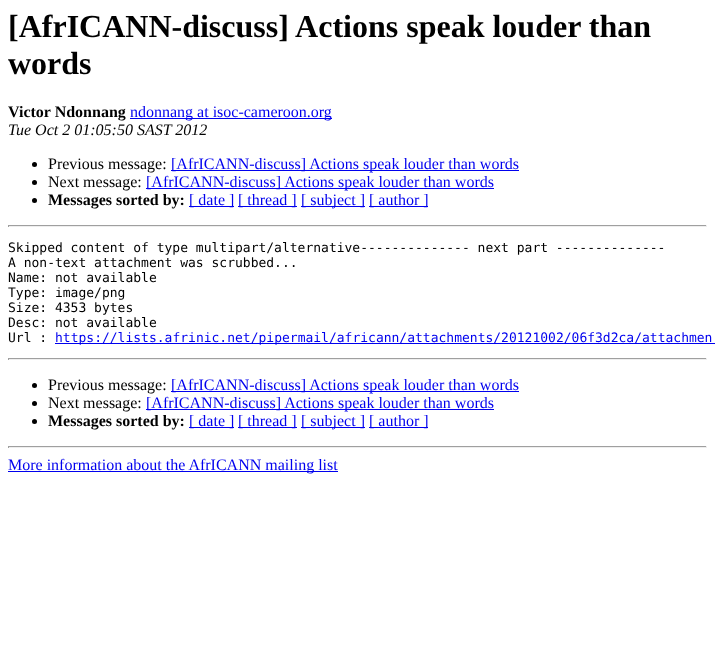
<!DOCTYPE html>
<meta charset="utf-8">
<style>body { margin: 0 } canvas { display: block }</style>
<canvas id="canvas" width="715" height="662"></canvas>
<script type="module">
  const canvas = document.getElementById("canvas");
  const ctx = canvas.getContext("2d");
  ctx.miterLimit = 4;
  ctx.fontKerning = "normal";

  ctx.fillStyle = "#ffffff";
  ctx.fillRect(0, 0, 715, 662);
  ctx.font = "bold 32px Liberation Serif";
  ctx.fillStyle = "#000000";
  ctx.fillText("[AfrICANN-discuss] Actions speak louder than", 8, 37);
  ctx.fillText("words", 8, 74);
  ctx.font = "bold 16px Liberation Serif";
  ctx.fillText("Victor Ndonnang", 8, 117);
  ctx.fillStyle = "#0000ee";
  ctx.fillRect(130, 118, 202, 1);
  ctx.font = "16px Liberation Serif";
  ctx.fillText("ndonnang at isoc-cameroon.org", 130, 117);
  ctx.font = "italic 16px Liberation Serif";
  ctx.fillStyle = "#000000";
  ctx.fillText("Tue Oct 2 01:05:50 SAST 2012", 8, 135);
  ctx.beginPath();
  ctx.arc(34.5, 164.5, 2.5, 0, Math.PI * 2);
  ctx.fill();
  ctx.font = "16px Liberation Serif";
  ctx.fillText("Previous message:", 48, 169);
  ctx.fillStyle = "#0000ee";
  ctx.fillRect(171, 170, 348, 1);
  ctx.fillText("[AfrICANN-discuss] Actions speak louder than words", 171, 169);
  ctx.fillStyle = "#000000";
  ctx.beginPath();
  ctx.arc(34.5, 182.5, 2.5, 0, Math.PI * 2);
  ctx.fill();
  ctx.fillText("Next message:", 48, 187);
  ctx.fillStyle = "#0000ee";
  ctx.fillRect(146, 188, 348, 1);
  ctx.fillText("[AfrICANN-discuss] Actions speak louder than words", 146, 187);
  ctx.fillStyle = "#000000";
  ctx.beginPath();
  ctx.arc(34.5, 200.5, 2.5, 0, Math.PI * 2);
  ctx.fill();
  ctx.font = "bold 16px Liberation Serif";
  ctx.fillText("Messages sorted by:", 48, 205);
  ctx.fillStyle = "#0000ee";
  ctx.fillRect(189, 206, 45, 1);
  ctx.font = "16px Liberation Serif";
  ctx.fillText("[ date ]", 189, 205);
  ctx.fillRect(238, 206, 59, 1);
  ctx.fillText("[ thread ]", 238, 205);
  ctx.fillRect(301, 206, 64, 1);
  ctx.fillText("[ subject ]", 301, 205);
  ctx.fillRect(369, 206, 59, 1);
  ctx.fillText("[ author ]", 369, 205);
  ctx.fillStyle = "#9f9f9f";
  ctx.fillRect(8, 225, 699, 1);
  ctx.fillStyle = "#eeeeee";
  ctx.fillRect(706, 225, 1, 2);
  ctx.fillRect(8, 226, 699, 1);
  ctx.fillStyle = "#9f9f9f";
  ctx.fillRect(8, 225, 1, 2);
  ctx.font = "13px DejaVu Sans Mono";
  ctx.fillStyle = "#000000";
  ctx.fillText("Skipped content of type multipart/alternative-------------- next part --------------", 8, 252);
  ctx.fillText("A non-text attachment was scrubbed...", 8, 267);
  ctx.fillText("Name: not available", 8, 282);
  ctx.fillText("Type: image/png", 8, 297);
  ctx.fillText("Size: 4353 bytes", 8, 312);
  ctx.fillText("Desc: not available", 8, 327);
  ctx.fillText("Url :", 8, 342);
  ctx.fillStyle = "#0000ee";
  ctx.fillRect(55, 343, 660, 1);
  ctx.fillText("https://lists.afrinic.net/pipermail/africann/attachments/20121002/06f3d2ca/attachmen", 55, 342);
  ctx.fillStyle = "#9f9f9f";
  ctx.fillRect(8, 358, 699, 1);
  ctx.fillStyle = "#eeeeee";
  ctx.fillRect(706, 358, 1, 2);
  ctx.fillRect(8, 359, 699, 1);
  ctx.fillStyle = "#9f9f9f";
  ctx.fillRect(8, 358, 1, 2);
  ctx.fillStyle = "#000000";
  ctx.beginPath();
  ctx.arc(34.5, 385.5, 2.5, 0, Math.PI * 2);
  ctx.fill();
  ctx.font = "16px Liberation Serif";
  ctx.fillText("Previous message:", 48, 390);
  ctx.fillStyle = "#0000ee";
  ctx.fillRect(171, 391, 348, 1);
  ctx.fillText("[AfrICANN-discuss] Actions speak louder than words", 171, 390);
  ctx.fillStyle = "#000000";
  ctx.beginPath();
  ctx.arc(34.5, 403.5, 2.5, 0, Math.PI * 2);
  ctx.fill();
  ctx.fillText("Next message:", 48, 408);
  ctx.fillStyle = "#0000ee";
  ctx.fillRect(146, 409, 348, 1);
  ctx.fillText("[AfrICANN-discuss] Actions speak louder than words", 146, 408);
  ctx.fillStyle = "#000000";
  ctx.beginPath();
  ctx.arc(34.5, 421.5, 2.5, 0, Math.PI * 2);
  ctx.fill();
  ctx.font = "bold 16px Liberation Serif";
  ctx.fillText("Messages sorted by:", 48, 426);
  ctx.fillStyle = "#0000ee";
  ctx.fillRect(189, 427, 45, 1);
  ctx.font = "16px Liberation Serif";
  ctx.fillText("[ date ]", 189, 426);
  ctx.fillRect(238, 427, 59, 1);
  ctx.fillText("[ thread ]", 238, 426);
  ctx.fillRect(301, 427, 64, 1);
  ctx.fillText("[ subject ]", 301, 426);
  ctx.fillRect(369, 427, 59, 1);
  ctx.fillText("[ author ]", 369, 426);
  ctx.fillStyle = "#9f9f9f";
  ctx.fillRect(8, 446, 699, 1);
  ctx.fillStyle = "#eeeeee";
  ctx.fillRect(706, 446, 1, 2);
  ctx.fillRect(8, 447, 699, 1);
  ctx.fillStyle = "#9f9f9f";
  ctx.fillRect(8, 446, 1, 2);
  ctx.fillStyle = "#0000ee";
  ctx.fillRect(8, 471, 330, 1);
  ctx.fillText("More information about the AfrICANN mailing list", 8, 470);
</script>
